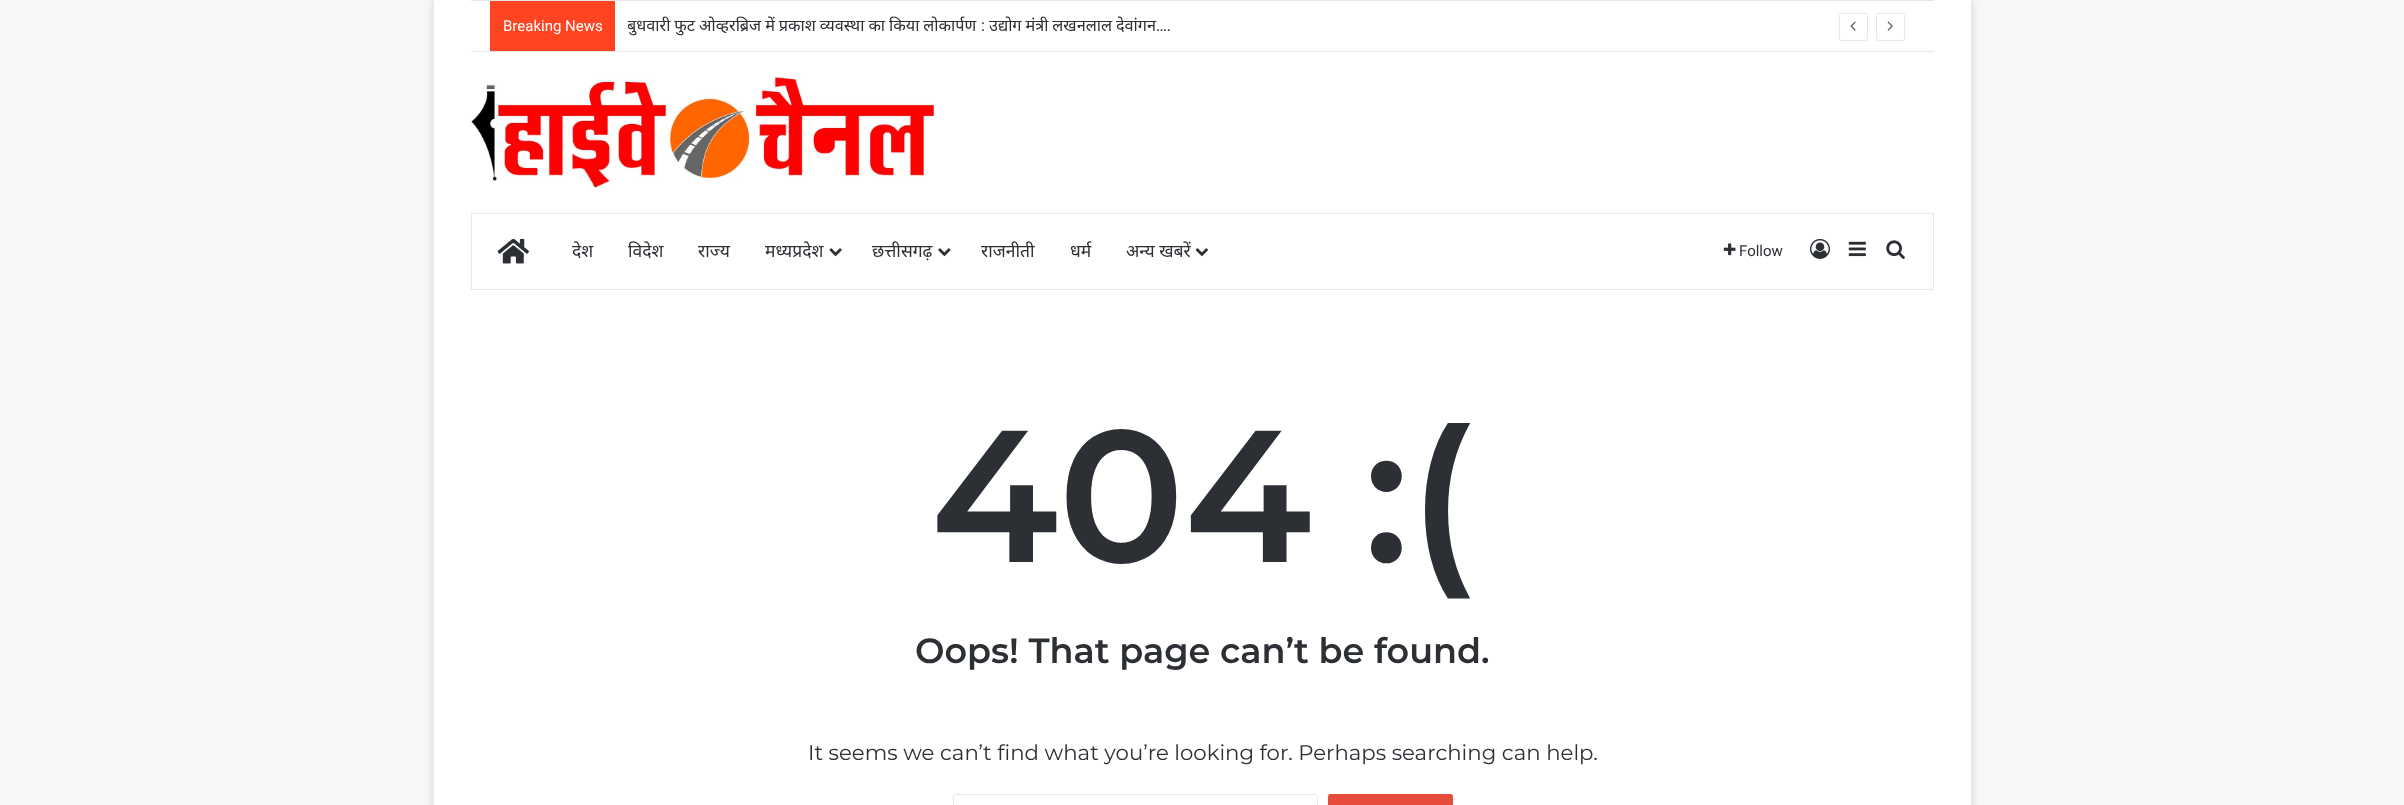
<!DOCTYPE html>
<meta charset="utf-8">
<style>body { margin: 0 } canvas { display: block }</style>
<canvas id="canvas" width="2404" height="805"></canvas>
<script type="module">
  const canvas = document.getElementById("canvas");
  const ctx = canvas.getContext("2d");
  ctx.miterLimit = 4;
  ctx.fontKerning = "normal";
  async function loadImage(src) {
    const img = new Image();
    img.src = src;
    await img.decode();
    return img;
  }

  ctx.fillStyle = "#f7f7f7";
  ctx.fillRect(0, 0, 2404, 805);
  ctx.fillStyle = "rgba(171, 171, 171, 0.5)";
  ctx.filter = "blur(4.5px)";
  ctx.beginPath();
  ctx.rect(434, 1, 1537, 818);
  ctx.fill();
  ctx.filter = "none";
  ctx.fillStyle = "#ffffff";
  ctx.fillRect(434, 0, 1537, 805);
  ctx.fillStyle = "#e6e6e6";
  ctx.fillRect(471, 0, 1463, 1);
  ctx.fillRect(471, 51, 1463, 1);
  ctx.fillStyle = "#ff4422";
  ctx.fillRect(490, 1, 125, 50);
  ctx.font = "15px Roboto";
  ctx.fillStyle = "#ffffff";
  ctx.fillText("Breaking News", 503, 31);
  ctx.save();
  ctx.beginPath();
  ctx.rect(628, 1, 543, 50);
  ctx.clip();
  ctx.wordSpacing = "-0.25px";
  ctx.font = "16.25px Noto Sans";
  ctx.fillStyle = "#2c2f34";
  ctx.fillText("बुधवारी फुट ओव्हरब्रिज में प्रकाश व्यवस्था का किया लोकार्पण", 627, 31);
  ctx.restore();
  ctx.font = "16.25px Roboto";
  ctx.fillStyle = "#2c2f34";
  ctx.fillText(":", 981, 31);
  ctx.wordSpacing = "-0.25px";
  ctx.font = "16.25px Noto Sans";
  ctx.fillText("उद्योग मंत्री लखनलाल देवांगन", 989, 31);
  ctx.wordSpacing = "0px";
  ctx.font = "16.25px Roboto";
  ctx.fillText("….", 1156, 31);
  ctx.beginPath();
  ctx.roundRect(1839.5, 13.5, 28, 27, 2);
  ctx.strokeStyle = "#e6e6e6";
  ctx.stroke();
  ctx.drawImage(await loadImage("img1.png"), 1850, 21, 6, 10);
  ctx.beginPath();
  ctx.roundRect(1876.5, 13.5, 28, 27, 2);
  ctx.stroke();
  ctx.drawImage(await loadImage("img2.png"), 1887, 21, 6, 10);
  ctx.drawImage(await loadImage("img3.png"), 471, 77, 463, 111);
  ctx.strokeRect(471.5, 213.5, 1462, 76);
  ctx.drawImage(await loadImage("img4.png"), 497, 238, 32, 26);
  ctx.font = "17.5px Noto Sans";
  ctx.fillText("देश", 572, 257);
  ctx.fillText("विदेश", 628, 257);
  ctx.fillText("राज्य", 698, 257);
  ctx.fillText("मध्यप्रदेश", 765, 257);
  ctx.drawImage(await loadImage("img5.png"), 829, 248, 13, 9);
  ctx.fillText("छत्तीसगढ़", 872, 257);
  ctx.drawImage(await loadImage("img6.png"), 938, 248, 13, 9);
  ctx.fillText("राजनीती", 981, 257);
  ctx.fillText("धर्म", 1070, 257);
  ctx.fillText("अन्य खबरें", 1126, 257);
  ctx.drawImage(await loadImage("img7.png"), 1195, 248, 13, 9);
  ctx.drawImage(await loadImage("img8.png"), 1723, 243, 13, 13);
  ctx.font = "15px Roboto";
  ctx.fillText("Follow", 1739, 256);
  ctx.drawImage(await loadImage("img9.png"), 1810, 238, 20, 21);
  ctx.drawImage(await loadImage("img10.png"), 1848, 241, 18, 16);
  ctx.drawImage(await loadImage("img11.png"), 1886, 240, 19, 19);
  ctx.font = "600 187.5px Montserrat";
  ctx.fillText("404 :(", 931, 562);
  ctx.font = "600 35px Montserrat";
  ctx.fillText("Oops! That page can’t be found.", 915, 663);
  ctx.font = "21.25px Montserrat";
  ctx.fillText("It seems we can’t find what you’re looking for. Perhaps searching can help.", 808, 760);
  ctx.beginPath();
  ctx.roundRect(953.5, 794.5, 364, 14, 2);
  ctx.stroke();
  ctx.fillStyle = "#e74c3c";
  ctx.beginPath();
  ctx.roundRect(1328, 794, 125, 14, 2.5);
  ctx.fill();
</script>
